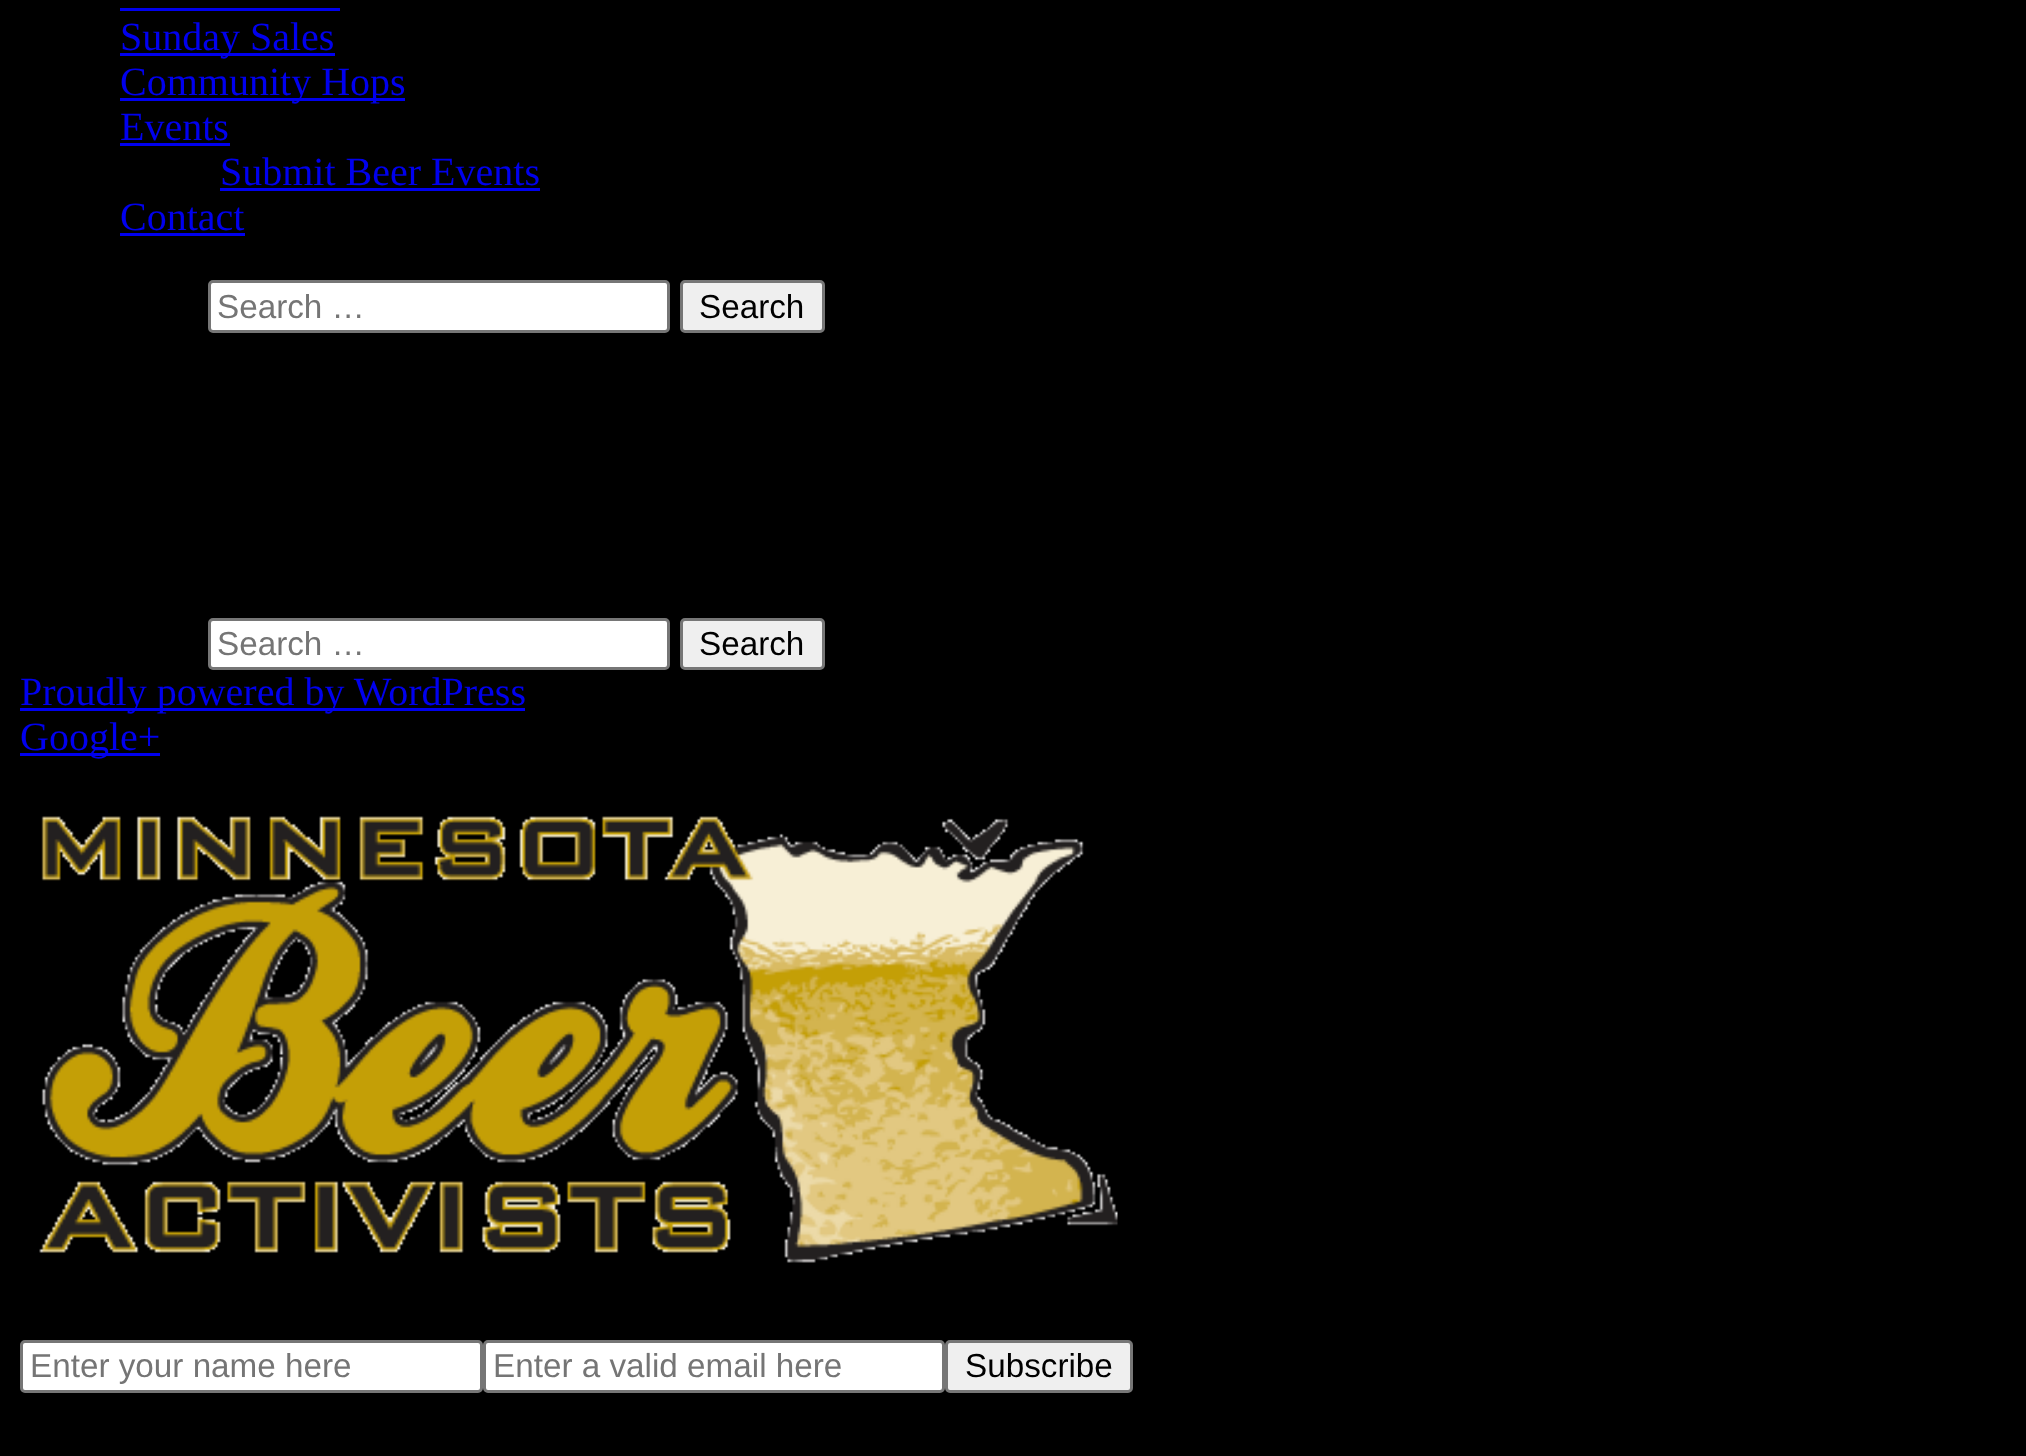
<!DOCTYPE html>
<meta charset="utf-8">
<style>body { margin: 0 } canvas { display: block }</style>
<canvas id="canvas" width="2026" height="1456"></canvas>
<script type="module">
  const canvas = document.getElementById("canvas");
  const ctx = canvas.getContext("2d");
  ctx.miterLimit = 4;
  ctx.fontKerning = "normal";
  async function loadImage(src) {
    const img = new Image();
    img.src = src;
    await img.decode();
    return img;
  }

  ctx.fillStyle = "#000000";
  ctx.fillRect(0, 0, 2026, 1456);
  ctx.fillStyle = "#0000ee";
  ctx.fillRect(120, 8, 220, 3);
  ctx.fillRect(120, 53, 215, 3);
  ctx.font = "40px Liberation Serif";
  ctx.fillText("Sunday Sales", 120, 50);
  ctx.fillRect(120, 98, 285, 3);
  ctx.fillText("Community Hops", 120, 95);
  ctx.fillText("Events", 120, 140);
  ctx.fillRect(120, 143, 110, 3);
  ctx.fillText("Submit Beer Events", 220, 185);
  ctx.fillRect(220, 188, 320, 3);
  ctx.fillText("Contact", 120, 230);
  ctx.fillRect(120, 233, 125, 3);
  ctx.fillStyle = "#ffffff";
  ctx.beginPath();
  ctx.roundRect(209.5, 281.5, 459, 50, 3.5);
  ctx.fill();
  ctx.strokeStyle = "#767676";
  ctx.lineWidth = 3;
  ctx.stroke();
  ctx.font = "33.25px Liberation Sans";
  ctx.fillStyle = "#757575";
  ctx.fillText("Search …", 217, 318);
  ctx.fillStyle = "#efefef";
  ctx.beginPath();
  ctx.roundRect(681.5, 281.5, 142, 50, 3.5);
  ctx.fill();
  ctx.stroke();
  ctx.fillStyle = "#000000";
  ctx.fillText("Search", 699, 318);
  ctx.fillStyle = "#ffffff";
  ctx.beginPath();
  ctx.roundRect(209.5, 619.5, 459, 49, 3.5);
  ctx.fill();
  ctx.stroke();
  ctx.fillStyle = "#757575";
  ctx.fillText("Search …", 217, 655);
  ctx.fillStyle = "#efefef";
  ctx.beginPath();
  ctx.roundRect(681.5, 619.5, 142, 49, 3.5);
  ctx.fill();
  ctx.stroke();
  ctx.fillStyle = "#000000";
  ctx.fillText("Search", 699, 655);
  ctx.fillStyle = "#0000ee";
  ctx.fillRect(20, 708, 505, 3);
  ctx.font = "40px Liberation Serif";
  ctx.fillText("Proudly powered by WordPress", 20, 705);
  ctx.fillRect(20, 753, 140, 3);
  ctx.fillText("Google+", 20, 750);
  ctx.drawImage(await loadImage("img1.png"), 39, 816, 1079, 447);
  ctx.fillStyle = "#ffffff";
  ctx.beginPath();
  ctx.roundRect(21.5, 1341.5, 460, 50, 3.5);
  ctx.fill();
  ctx.stroke();
  ctx.font = "33.25px Liberation Sans";
  ctx.fillStyle = "#757575";
  ctx.fillText("Enter your name here", 30, 1377);
  ctx.fillStyle = "#ffffff";
  ctx.beginPath();
  ctx.roundRect(484.5, 1341.5, 459, 50, 3.5);
  ctx.fill();
  ctx.stroke();
  ctx.fillStyle = "#757575";
  ctx.fillText("Enter a valid email here", 493, 1377);
  ctx.fillStyle = "#efefef";
  ctx.beginPath();
  ctx.roundRect(946.5, 1341.5, 185, 50, 3.5);
  ctx.fill();
  ctx.stroke();
  ctx.fillStyle = "#000000";
  ctx.fillText("Subscribe", 965, 1377);
</script>
